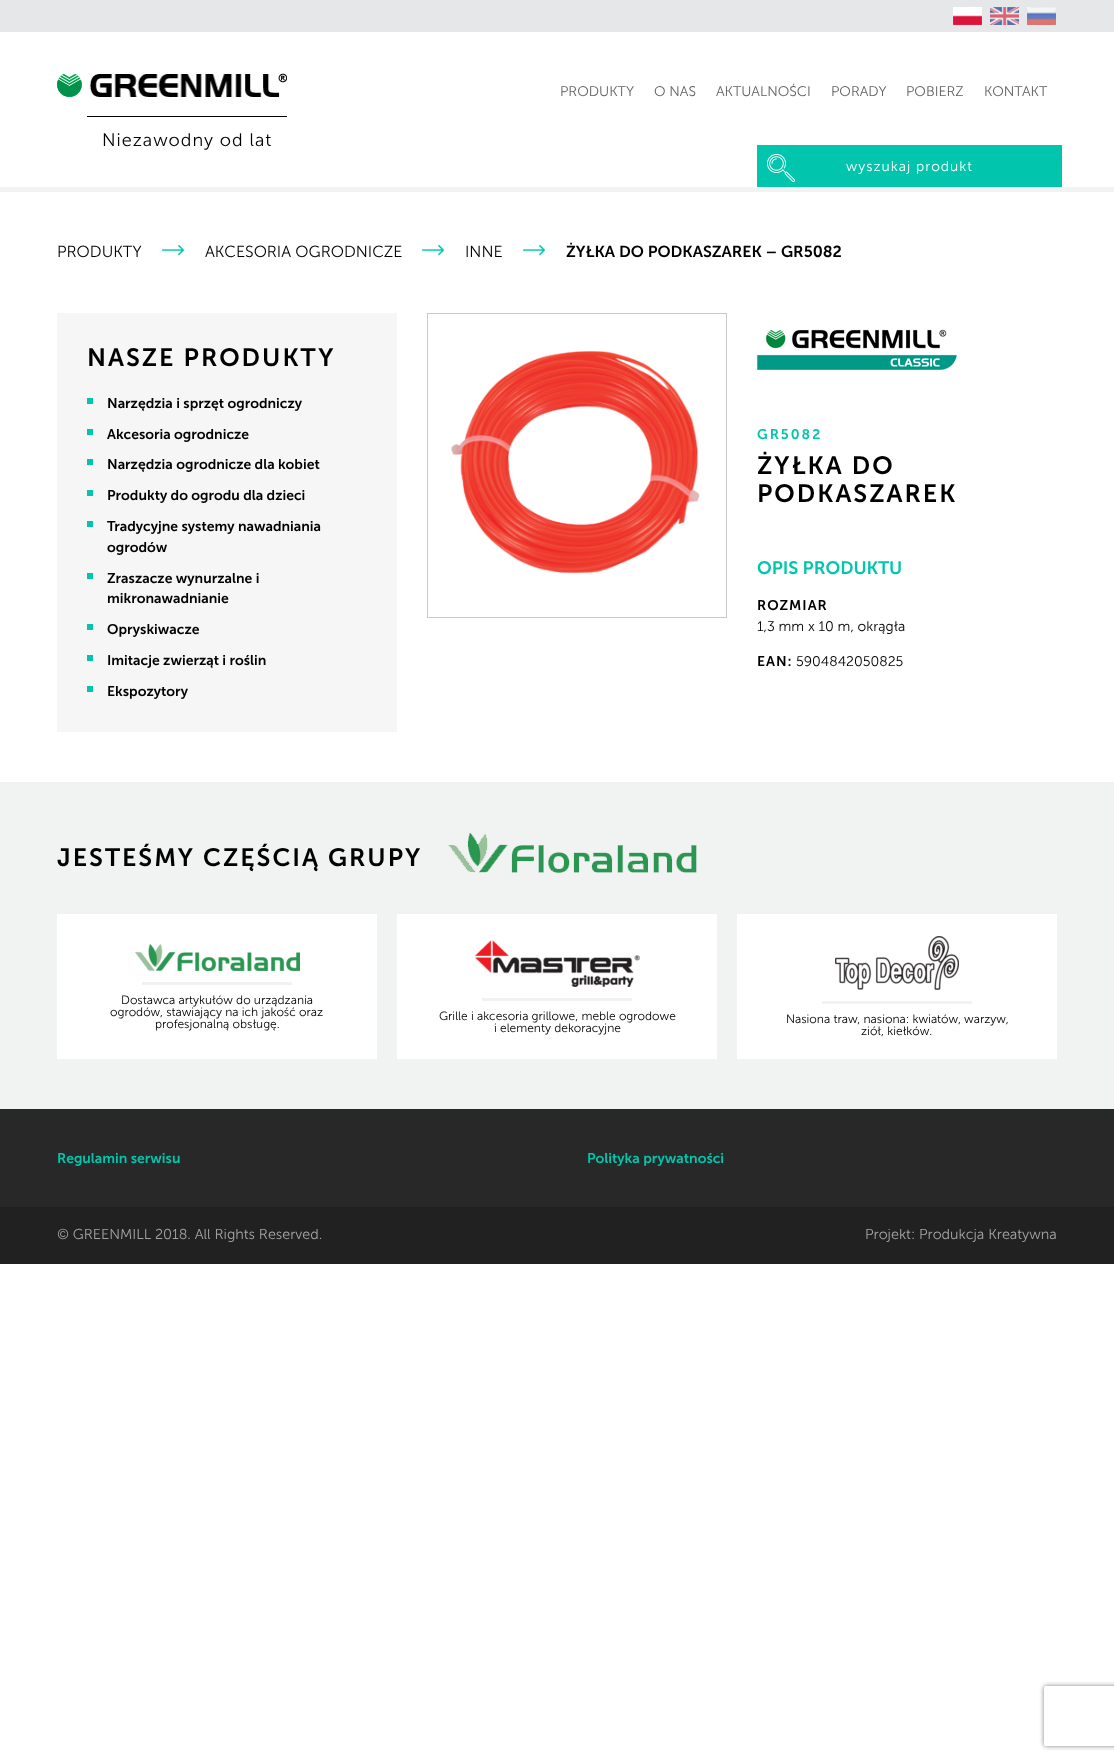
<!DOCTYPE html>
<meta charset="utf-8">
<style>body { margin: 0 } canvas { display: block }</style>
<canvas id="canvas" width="1114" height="1760"></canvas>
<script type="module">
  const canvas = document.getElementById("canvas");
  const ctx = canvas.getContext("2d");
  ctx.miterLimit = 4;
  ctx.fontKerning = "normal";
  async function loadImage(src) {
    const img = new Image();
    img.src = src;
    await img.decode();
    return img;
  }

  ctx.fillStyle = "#ffffff";
  ctx.fillRect(0, 0, 1114, 1760);
  ctx.fillStyle = "#e6e7e8";
  ctx.fillRect(0, 0, 1114, 32);
  ctx.drawImage(await loadImage("img1.png"), 953, 7, 29, 18);
  ctx.drawImage(await loadImage("img2.png"), 990, 7, 29, 18);
  ctx.drawImage(await loadImage("img3.png"), 1027, 7, 29, 18);
  ctx.drawImage(await loadImage("img4.png"), 57, 73, 230, 24);
  ctx.fillStyle = "#000000";
  ctx.fillRect(87, 116, 200, 1);
  ctx.letterSpacing = "1px";
  ctx.font = "300 18px Museo Sans";
  ctx.fillText("Niezawodny od lat", 102, 146);
  ctx.letterSpacing = "0px";
  ctx.font = "300 14px Museo Sans";
  ctx.fillStyle = "#616161";
  ctx.fillText("PRODUKTY", 560, 96);
  ctx.fillText("O NAS", 654, 96);
  ctx.fillText("AKTUALNOŚCI", 716, 96);
  ctx.fillText("PORADY", 831, 96);
  ctx.fillText("POBIERZ", 906, 96);
  ctx.fillText("KONTAKT", 984, 96);
  ctx.fillStyle = "#02c5ad";
  ctx.fillRect(757, 145, 305, 42);
  ctx.drawImage(await loadImage("img5.png"), 767, 154, 28, 28);
  ctx.letterSpacing = "1px";
  ctx.fillStyle = "#ffffff";
  ctx.fillText("wyszukaj produkt", 846, 171);
  ctx.fillStyle = "#f2f2f2";
  ctx.fillRect(0, 187, 1114, 5);
  ctx.letterSpacing = "0px";
  ctx.font = "300 16px Museo Sans";
  ctx.fillStyle = "#000000";
  ctx.fillText("PRODUKTY", 57, 257);
  ctx.drawImage(await loadImage("img6.png"), 162, 245, 22, 11);
  ctx.fillText("AKCESORIA OGRODNICZE", 205, 257);
  ctx.drawImage(await loadImage("img6.png"), 422, 245, 22, 11);
  ctx.fillText("INNE", 465, 257);
  ctx.drawImage(await loadImage("img6.png"), 523, 245, 22, 11);
  ctx.font = "600 16px Museo Sans";
  ctx.fillText("ŻYŁKA DO PODKASZAREK – GR5082", 566, 257);
  ctx.fillStyle = "#f6f6f6";
  ctx.fillRect(57, 313, 340, 419);
  ctx.letterSpacing = "2px";
  ctx.font = "600 25px Museo Sans";
  ctx.fillStyle = "#000000";
  ctx.fillText("NASZE PRODUKTY", 87, 366);
  ctx.fillStyle = "#03c4b1";
  ctx.fillRect(87, 398, 6, 6);
  ctx.letterSpacing = "0px";
  ctx.font = "600 14px Museo Sans";
  ctx.fillStyle = "#000000";
  ctx.fillText("Narzędzia i sprzęt ogrodniczy", 107, 408);
  ctx.fillStyle = "#03c4b1";
  ctx.fillRect(87, 429, 6, 6);
  ctx.fillStyle = "#000000";
  ctx.fillText("Akcesoria ogrodnicze", 107, 439);
  ctx.fillStyle = "#03c4b1";
  ctx.fillRect(87, 459, 6, 6);
  ctx.fillStyle = "#000000";
  ctx.fillText("Narzędzia ogrodnicze dla kobiet", 107, 469);
  ctx.fillStyle = "#03c4b1";
  ctx.fillRect(87, 490, 6, 6);
  ctx.fillStyle = "#000000";
  ctx.fillText("Produkty do ogrodu dla dzieci", 107, 500);
  ctx.fillStyle = "#03c4b1";
  ctx.fillRect(87, 521, 6, 6);
  ctx.fillStyle = "#000000";
  ctx.fillText("Tradycyjne systemy nawadniania", 107, 531);
  ctx.fillText("ogrodów", 107, 552);
  ctx.fillStyle = "#03c4b1";
  ctx.fillRect(87, 573, 6, 6);
  ctx.fillStyle = "#000000";
  ctx.fillText("Zraszacze wynurzalne i", 107, 583);
  ctx.fillText("mikronawadnianie", 107, 603);
  ctx.fillStyle = "#03c4b1";
  ctx.fillRect(87, 624, 6, 6);
  ctx.fillStyle = "#000000";
  ctx.fillText("Opryskiwacze", 107, 634);
  ctx.fillStyle = "#03c4b1";
  ctx.fillRect(87, 655, 6, 6);
  ctx.fillStyle = "#000000";
  ctx.fillText("Imitacje zwierząt i roślin", 107, 665);
  ctx.fillStyle = "#03c4b1";
  ctx.fillRect(87, 686, 6, 6);
  ctx.fillStyle = "#000000";
  ctx.fillText("Ekspozytory", 107, 696);
  ctx.strokeStyle = "#cac9ce";
  ctx.strokeRect(427.5, 313.5, 299, 304);
  ctx.drawImage(await loadImage("img7.png"), 451, 351, 249, 222);
  ctx.drawImage(await loadImage("img8.png"), 757, 329, 200, 41);
  ctx.letterSpacing = "2px";
  ctx.fillStyle = "#02c5ad";
  ctx.fillText("GR5082", 757, 439);
  ctx.font = "600 25px Museo Sans";
  ctx.fillStyle = "#000000";
  ctx.fillText("ŻYŁKA DO", 757, 474);
  ctx.fillText("PODKASZAREK", 757, 502);
  ctx.letterSpacing = "0px";
  ctx.font = "600 18px Museo Sans";
  ctx.fillStyle = "#02c5ad";
  ctx.fillText("OPIS PRODUKTU", 757, 574);
  ctx.letterSpacing = "1px";
  ctx.font = "600 14px Museo Sans";
  ctx.fillStyle = "#000000";
  ctx.fillText("ROZMIAR", 757, 610);
  ctx.letterSpacing = "0px";
  ctx.font = "300 14px Museo Sans";
  ctx.fillText("1,3 mm x 10 m, okrągła", 757, 631);
  ctx.letterSpacing = "1px";
  ctx.font = "600 14px Museo Sans";
  ctx.fillText("EAN:", 757, 666);
  ctx.letterSpacing = "0px";
  ctx.font = "300 14px Museo Sans";
  ctx.fillText("5904842050825", 796, 666);
  ctx.fillStyle = "#f1f2f2";
  ctx.fillRect(0, 782, 1114, 327);
  ctx.drawImage(await loadImage("img9.png"), 448, 832, 249, 41);
  ctx.letterSpacing = "2px";
  ctx.font = "600 25px Museo Sans";
  ctx.fillStyle = "#000000";
  ctx.fillText("JESTEŚMY CZĘŚCIĄ GRUPY", 57, 866);
  ctx.fillStyle = "#ffffff";
  ctx.fillRect(57, 914, 320, 145);
  ctx.drawImage(await loadImage("img10.png"), 135, 944, 165, 27);
  ctx.fillStyle = "#f1f2f2";
  ctx.fillRect(142, 982, 150, 3);
  ctx.letterSpacing = "0px";
  ctx.font = "300 12px Museo Sans";
  ctx.fillStyle = "#000000";
  ctx.fillText("Dostawca artykułów do urządzania", 121, 1004);
  ctx.fillText("ogrodów, stawiający na ich jakość oraz", 110, 1016);
  ctx.fillText("profesjonalną obsługę.", 155, 1028);
  ctx.fillStyle = "#ffffff";
  ctx.fillRect(397, 914, 320, 145);
  ctx.drawImage(await loadImage("img11.png"), 475, 940, 165, 47);
  ctx.fillStyle = "#f1f2f2";
  ctx.fillRect(482, 998, 150, 3);
  ctx.fillStyle = "#000000";
  ctx.fillText("Grille i akcesoria grillowe, meble ogrodowe", 439, 1020);
  ctx.fillText("i elementy dekoracyjne", 494, 1032);
  ctx.fillStyle = "#ffffff";
  ctx.fillRect(737, 914, 320, 145);
  ctx.drawImage(await loadImage("img12.png"), 835, 936, 124, 54);
  ctx.fillStyle = "#f1f2f2";
  ctx.fillRect(822, 1001, 150, 3);
  ctx.fillStyle = "#000000";
  ctx.fillText("Nasiona traw, nasiona: kwiatów, warzyw,", 786, 1023);
  ctx.fillText("ziół, kiełków.", 861, 1035);
  ctx.fillStyle = "#282828";
  ctx.fillRect(0, 1109, 1114, 98);
  ctx.font = "600 14px Museo Sans";
  ctx.fillStyle = "#02c5ad";
  ctx.fillText("Regulamin serwisu", 57, 1163);
  ctx.fillText("Polityka prywatności", 587, 1163);
  ctx.fillStyle = "#212121";
  ctx.fillRect(0, 1207, 1114, 57);
  ctx.font = "300 14.4px Museo Sans";
  ctx.fillStyle = "#a5a4a4";
  ctx.fillText("© GREENMILL 2018. All Rights Reserved.", 57, 1239);
  ctx.fillText("Projekt: Produkcja Kreatywna", 865, 1239);
  ctx.save();
  ctx.beginPath();
  ctx.moveTo(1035, 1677);
  ctx.lineTo(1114, 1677);
  ctx.lineTo(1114, 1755);
  ctx.lineTo(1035, 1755);
  ctx.closePath();
  ctx.moveTo(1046, 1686);
  ctx.lineTo(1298, 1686);
  ctx.bezierCurveTo(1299, 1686, 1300, 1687, 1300, 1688);
  ctx.lineTo(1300, 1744);
  ctx.bezierCurveTo(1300, 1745, 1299, 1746, 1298, 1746);
  ctx.lineTo(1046, 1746);
  ctx.bezierCurveTo(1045, 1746, 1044, 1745, 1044, 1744);
  ctx.lineTo(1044, 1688);
  ctx.bezierCurveTo(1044, 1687, 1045, 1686, 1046, 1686);
  ctx.closePath();
  ctx.clip("evenodd");
  ctx.fillStyle = "#808080";
  ctx.filter = "blur(2.5px)";
  ctx.beginPath();
  ctx.roundRect(1044, 1686, 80, 60, 2);
  ctx.fill();
  ctx.filter = "none";
  ctx.restore();
</script>
